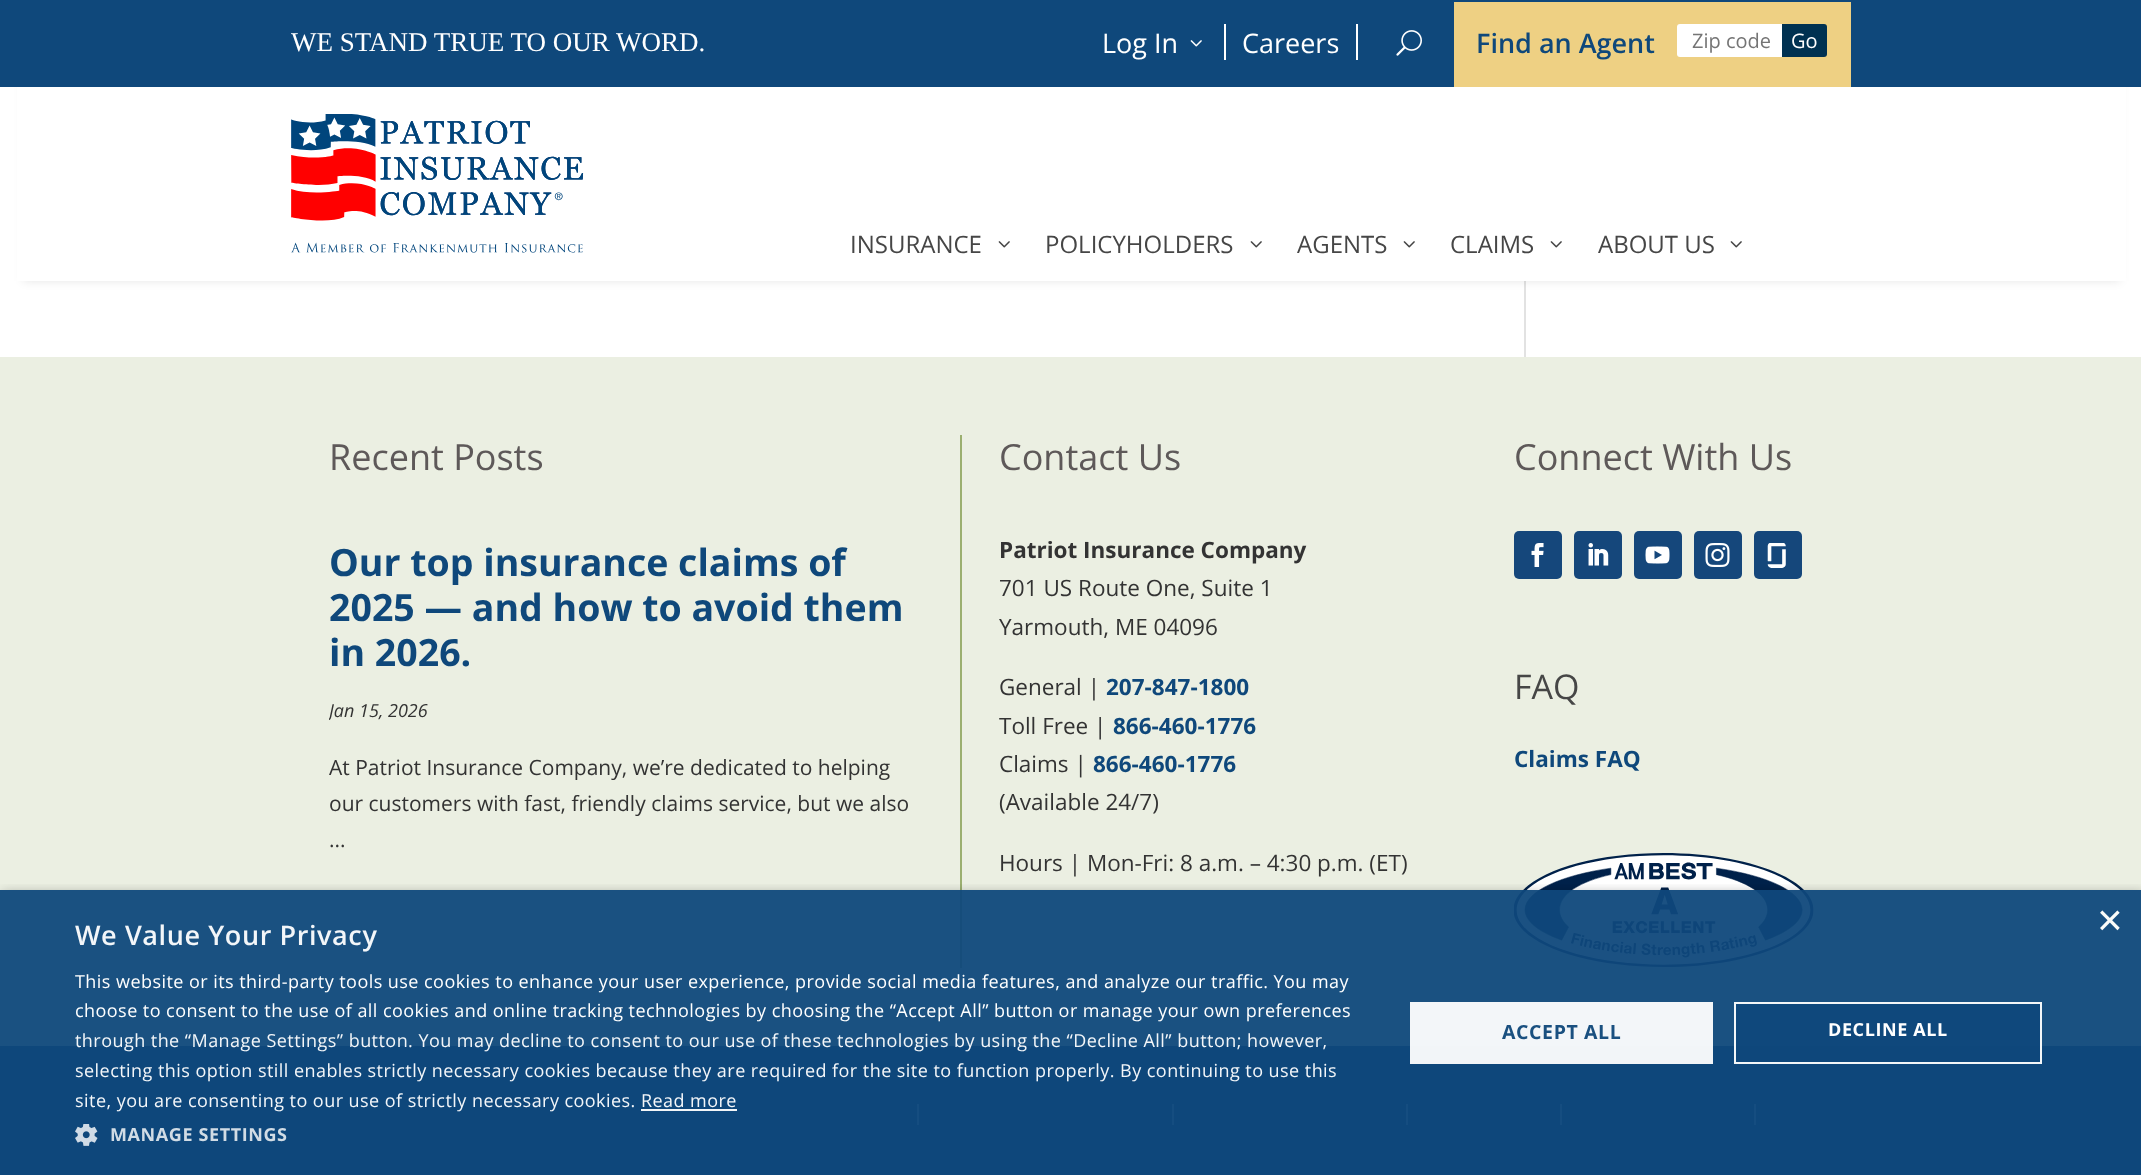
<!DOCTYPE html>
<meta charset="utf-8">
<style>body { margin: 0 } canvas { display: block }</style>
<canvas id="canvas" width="2141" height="1175"></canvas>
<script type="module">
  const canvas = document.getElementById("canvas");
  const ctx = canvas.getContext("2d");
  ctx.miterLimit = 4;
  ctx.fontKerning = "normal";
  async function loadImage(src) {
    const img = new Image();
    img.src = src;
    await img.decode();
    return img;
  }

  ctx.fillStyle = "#ffffff";
  ctx.fillRect(0, 0, 2141, 1175);
  ctx.fillStyle = "#e2e2e2";
  ctx.fillRect(1524, 281, 2, 76);
  ctx.fillStyle = "rgba(0, 0, 0, 0.1)";
  ctx.filter = "blur(5px)";
  ctx.beginPath();
  ctx.rect(23, 45, 2097, 236);
  ctx.fill();
  ctx.filter = "none";
  ctx.fillStyle = "#0f487b";
  ctx.fillRect(0, 0, 2141, 87);
  ctx.font = "27px Liberation Serif";
  ctx.fillStyle = "#ffffff";
  ctx.fillText("WE STAND TRUE TO OUR WORD.", 291, 51);
  ctx.fillRect(1224, 24, 2, 36);
  ctx.font = "27px Open Sans";
  ctx.fillText("Log In", 1102, 53);
  ctx.drawImage(await loadImage("img1.png"), 1190, 40, 12, 7);
  ctx.fillRect(1356, 24, 2, 36);
  ctx.fillText("Careers", 1242, 53);
  ctx.drawImage(await loadImage("img2.png"), 1396, 30, 26, 26);
  ctx.fillStyle = "#eed083";
  ctx.fillRect(1454, 2, 397, 85);
  ctx.font = "600 27px Open Sans";
  ctx.fillStyle = "#0f487b";
  ctx.fillText("Find an Agent", 1476, 53);
  ctx.fillStyle = "#ffffff";
  ctx.beginPath();
  ctx.roundRect(1677, 24, 105, 33, [3, 0, 0, 3]);
  ctx.fill();
  ctx.font = "20px Open Sans";
  ctx.fillStyle = "#757575";
  ctx.fillText("Zip code", 1692, 48);
  ctx.fillStyle = "#003151";
  ctx.beginPath();
  ctx.roundRect(1782, 24, 45, 33, [0, 3, 3, 0]);
  ctx.fill();
  ctx.fillStyle = "#ffffff";
  ctx.fillText("Go", 1791, 48);
  ctx.fillRect(17, 87, 2109, 194);
  ctx.drawImage(await loadImage("img3.png"), 291, 114, 293, 139);
  ctx.font = "24px Open Sans";
  ctx.fillStyle = "#464646";
  ctx.fillText("INSURANCE", 850, 253);
  ctx.drawImage(await loadImage("img4.png"), 998, 241, 12, 7);
  ctx.fillText("POLICYHOLDERS", 1045, 253);
  ctx.drawImage(await loadImage("img4.png"), 1250, 241, 12, 7);
  ctx.fillText("AGENTS", 1297, 253);
  ctx.drawImage(await loadImage("img4.png"), 1403, 241, 12, 7);
  ctx.fillText("CLAIMS", 1450, 253);
  ctx.drawImage(await loadImage("img4.png"), 1550, 241, 12, 7);
  ctx.fillText("ABOUT US", 1598, 253);
  ctx.drawImage(await loadImage("img4.png"), 1730, 241, 12, 7);
  ctx.fillStyle = "#ebefe2";
  ctx.fillRect(0, 357, 2141, 689);
  ctx.fillStyle = "#9baf70";
  ctx.fillRect(960, 435, 2, 533);
  ctx.font = "36px Open Sans";
  ctx.fillStyle = "#5e5959";
  ctx.fillText("Recent Posts", 329, 470);
  ctx.font = "bold 37.5px Open Sans";
  ctx.fillStyle = "#0f487b";
  ctx.fillText("Our top insurance claims of", 329, 576);
  ctx.fillText("2025 — and how to avoid them", 329, 621);
  ctx.fillText("in 2026.", 329, 666);
  ctx.save();
  ctx.beginPath();
  ctx.rect(329, 531, 594, 399);
  ctx.clip();
  ctx.font = "italic 18px Open Sans";
  ctx.fillStyle = "#333333";
  ctx.fillText("Jan 15, 2026", 329, 717);
  ctx.restore();
  ctx.font = "21px Open Sans";
  ctx.fillStyle = "#333333";
  ctx.fillText("At Patriot Insurance Company, we’re dedicated to helping", 329, 775);
  ctx.fillText("our customers with fast, friendly claims service, but we also", 329, 811);
  ctx.fillText("...", 329, 847);
  ctx.font = "36px Open Sans";
  ctx.fillStyle = "#5e5959";
  ctx.fillText("Contact Us", 999, 470);
  ctx.font = "bold 22.5px Open Sans";
  ctx.fillStyle = "#333333";
  ctx.fillText("Patriot Insurance Company", 999, 558);
  ctx.font = "22.5px Open Sans";
  ctx.fillText("701 US Route One, Suite 1", 999, 596);
  ctx.fillText("Yarmouth, ME 04096", 999, 635);
  ctx.fillText("General |", 999, 695);
  ctx.font = "bold 22.5px Open Sans";
  ctx.fillStyle = "#0f487b";
  ctx.fillText("207-847-1800", 1106, 695);
  ctx.font = "22.5px Open Sans";
  ctx.fillStyle = "#333333";
  ctx.fillText("Toll Free |", 999, 734);
  ctx.font = "bold 22.5px Open Sans";
  ctx.fillStyle = "#0f487b";
  ctx.fillText("866-460-1776", 1113, 734);
  ctx.font = "22.5px Open Sans";
  ctx.fillStyle = "#333333";
  ctx.fillText("Claims |", 999, 772);
  ctx.font = "bold 22.5px Open Sans";
  ctx.fillStyle = "#0f487b";
  ctx.fillText("866-460-1776", 1093, 772);
  ctx.font = "22.5px Open Sans";
  ctx.fillStyle = "#333333";
  ctx.fillText("(Available 24/7)", 999, 810);
  ctx.fillText("Hours | Mon-Fri: 8 a.m. – 4:30 p.m. (ET)", 999, 871);
  ctx.font = "36px Open Sans";
  ctx.fillStyle = "#5e5959";
  ctx.fillText("Connect With Us", 1514, 470);
  ctx.fillStyle = "#15477b";
  ctx.beginPath();
  ctx.roundRect(1514, 531, 48, 48, 5);
  ctx.fill();
  ctx.drawImage(await loadImage("img5.png"), 1531, 543, 13, 24);
  ctx.beginPath();
  ctx.roundRect(1574, 531, 48, 48, 5);
  ctx.fill();
  ctx.drawImage(await loadImage("img6.png"), 1588, 543, 21, 23);
  ctx.beginPath();
  ctx.roundRect(1634, 531, 48, 48, 5);
  ctx.fill();
  ctx.drawImage(await loadImage("img7.png"), 1645, 546, 25, 18);
  ctx.beginPath();
  ctx.roundRect(1694, 531, 48, 48, 5);
  ctx.fill();
  ctx.drawImage(await loadImage("img8.png"), 1705, 543, 25, 24);
  ctx.beginPath();
  ctx.roundRect(1754, 531, 48, 48, 5);
  ctx.fill();
  ctx.drawImage(await loadImage("img9.png"), 1767, 543, 19, 25);
  ctx.font = "34px Open Sans";
  ctx.fillStyle = "#464646";
  ctx.fillText("FAQ", 1514, 699);
  ctx.font = "bold 22.5px Open Sans";
  ctx.fillStyle = "#0f487b";
  ctx.fillText("Claims FAQ", 1514, 767);
  ctx.drawImage(await loadImage("img10.png"), 1514, 853, 300, 114);
  ctx.fillStyle = "#12477a";
  ctx.fillRect(0, 1046, 2141, 129);
  ctx.fillStyle = "#92b6db";
  ctx.fillRect(917, 1104, 2, 21);
  ctx.fillRect(1172, 1104, 2, 21);
  ctx.fillRect(1406, 1104, 2, 21);
  ctx.fillRect(1560, 1104, 2, 21);
  ctx.fillRect(1754, 1104, 2, 21);
  ctx.save();
  ctx.beginPath();
  ctx.rect(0, 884, 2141, 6);
  ctx.clip();
  ctx.fillStyle = "rgba(0, 0, 0, 0.33)";
  ctx.filter = "blur(6px)";
  ctx.beginPath();
  ctx.rect(2, 893, 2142, 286);
  ctx.fill();
  ctx.filter = "none";
  ctx.restore();
  ctx.fillStyle = "rgba(15, 72, 123, 0.95)";
  ctx.fillRect(0, 890, 2141, 285);
  ctx.font = "44px Liberation Sans";
  ctx.fillStyle = "#fbfcf9";
  ctx.fillText("×", 2097, 935);
  ctx.letterSpacing = "0.6px";
  ctx.font = "600 27px Open Sans";
  ctx.fillStyle = "#f3f6f9";
  ctx.fillText("We Value Your Privacy", 75, 945);
  ctx.letterSpacing = "0.45px";
  ctx.font = "18px Open Sans";
  ctx.fillStyle = "#ffffff";
  ctx.fillText("This website or its third-party tools use cookies to enhance your user experience, provide social media features, and analyze our traffic. You may", 75, 988);
  ctx.fillText("choose to consent to the use of all cookies and online tracking technologies by choosing the “Accept All” button or manage your own preferences", 75, 1017);
  ctx.fillStyle = "#f3f6f9";
  ctx.fillText("through the “Manage Settings” button. You may decline to consent to our use of these technologies by using the “Decline All” button; however,", 75, 1047);
  ctx.fillText("selecting this option still enables strictly necessary cookies because they are required for the site to function properly. By continuing to use this", 75, 1077);
  ctx.fillText("site, you are consenting to our use of strictly necessary cookies. Read more", 75, 1107);
  ctx.fillStyle = "#f3f6f8";
  ctx.fillRect(641, 1109, 96, 2);
  ctx.drawImage(await loadImage("img11.png"), 75, 1124, 23, 22);
  ctx.letterSpacing = "0.6px";
  ctx.font = "bold 18px Open Sans";
  ctx.fillStyle = "#d1dce5";
  ctx.fillText("MANAGE SETTINGS", 110, 1141);
  ctx.fillStyle = "rgba(255, 255, 255, 0.95)";
  ctx.fillRect(1410, 1002, 303, 62);
  ctx.font = "bold 19.5px Open Sans";
  ctx.fillStyle = "#1a5080";
  ctx.fillText("ACCEPT ALL", 1502, 1039);
  ctx.fillStyle = "rgba(15, 72, 123, 0.95)";
  ctx.fillRect(1736, 1004, 304, 42);
  ctx.strokeStyle = "#f3f6f8";
  ctx.lineWidth = 2;
  ctx.strokeRect(1735, 1003, 306, 60);
  ctx.font = "bold 18px Open Sans";
  ctx.fillStyle = "#ffffff";
  ctx.fillText("DECLINE ALL", 1828, 1036);
</script>
